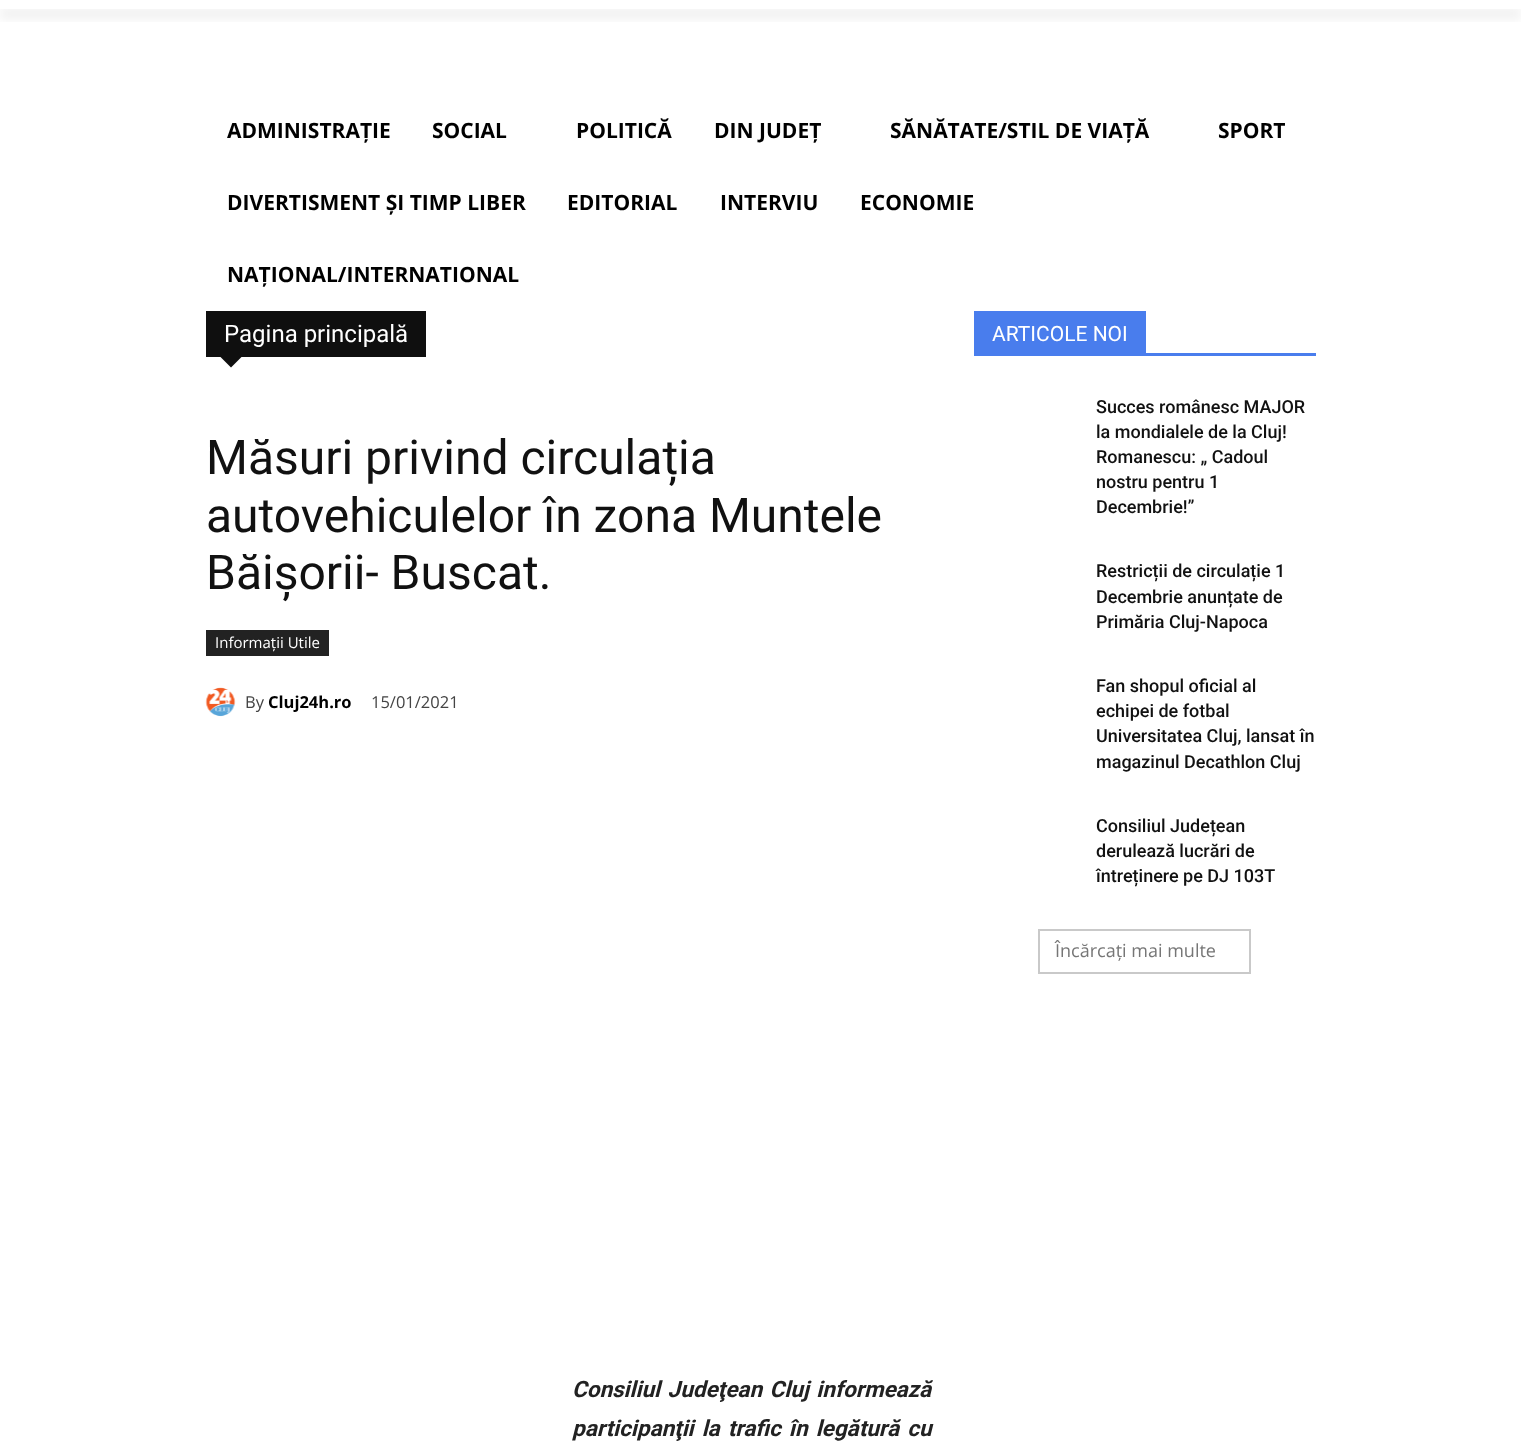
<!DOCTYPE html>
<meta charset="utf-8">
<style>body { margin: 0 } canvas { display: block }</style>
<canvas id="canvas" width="1521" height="1443"></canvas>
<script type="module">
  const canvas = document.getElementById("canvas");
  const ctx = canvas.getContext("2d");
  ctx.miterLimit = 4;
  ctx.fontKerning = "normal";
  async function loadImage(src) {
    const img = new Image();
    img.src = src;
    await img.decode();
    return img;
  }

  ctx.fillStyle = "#ffffff";
  ctx.fillRect(0, 0, 1521, 1443);
  ctx.save();
  ctx.beginPath();
  ctx.rect(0, 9, 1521, 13);
  ctx.clip();
  ctx.fillStyle = "rgba(0, 0, 0, 0.08)";
  ctx.filter = "blur(6px)";
  ctx.beginPath();
  ctx.rect(0, 9, 1521, 9);
  ctx.fill();
  ctx.filter = "none";
  ctx.restore();
  ctx.font = "bold 21px Open Sans";
  ctx.fillStyle = "#000000";
  ctx.fillText("ADMINISTRAȚIE", 227, 138);
  ctx.fillText("SOCIAL", 432, 138);
  ctx.fillText("POLITICĂ", 576, 138);
  ctx.fillText("DIN JUDEȚ", 714, 138);
  ctx.fillText("SĂNĂTATE/STIL DE VIAȚĂ", 890, 138);
  ctx.fillText("SPORT", 1218, 138);
  ctx.fillText("DIVERTISMENT ȘI TIMP LIBER", 227, 210);
  ctx.fillText("EDITORIAL", 567, 210);
  ctx.fillText("INTERVIU", 720, 210);
  ctx.fillText("ECONOMIE", 860, 210);
  ctx.fillText("NAȚIONAL/INTERNATIONAL", 227, 282);
  ctx.fillStyle = "#0f0f0f";
  ctx.fillRect(206, 311, 220, 46);
  ctx.font = "24px Roboto";
  ctx.fillStyle = "#ffffff";
  ctx.fillText("Pagina principală", 224, 342);
  ctx.fillStyle = "#0f0f0f";
  ctx.beginPath();
  ctx.moveTo(220.5, 357);
  ctx.lineTo(241.5, 357);
  ctx.lineTo(231, 367.5);
  ctx.closePath();
  ctx.fill();
  ctx.font = "48px Roboto";
  ctx.fillStyle = "#111111";
  ctx.fillText("Măsuri privind circulația", 206, 474);
  ctx.fillText("autovehiculelor în zona Muntele", 206, 532);
  ctx.fillText("Băișorii- Buscat.", 206, 589);
  ctx.fillStyle = "#222222";
  ctx.fillRect(206, 630, 123, 26);
  ctx.font = "15px Open Sans";
  ctx.fillStyle = "#ffffff";
  ctx.fillText("Informații Utile", 215, 648);
  ctx.drawImage(await loadImage("img1.png"), 205, 687, 31, 30);
  ctx.font = "16.5px Open Sans";
  ctx.fillStyle = "#444444";
  ctx.fillText("By", 245, 708);
  ctx.font = "bold 16.5px Open Sans";
  ctx.fillStyle = "#000000";
  ctx.fillText("Cluj24h.ro", 268, 708);
  ctx.font = "16.5px Open Sans";
  ctx.fillStyle = "#444444";
  ctx.fillText("15/01/2021", 371, 708);
  ctx.wordSpacing = "2px";
  ctx.font = "italic bold 22.5px Roboto";
  ctx.fillStyle = "#222222";
  ctx.fillText("Consiliul Judeţean Cluj informează", 572, 1397);
  ctx.wordSpacing = "2.5px";
  ctx.fillText("participanţii la trafic în legătură cu", 572, 1436);
  ctx.fillStyle = "#497ded";
  ctx.fillRect(974, 353, 342, 3);
  ctx.fillRect(974, 311, 172, 42);
  ctx.wordSpacing = "0px";
  ctx.font = "21px Roboto";
  ctx.fillStyle = "#ffffff";
  ctx.fillText("ARTICOLE NOI", 992, 341);
  ctx.font = "500 18px Roboto";
  ctx.fillStyle = "#111111";
  ctx.fillText("Succes românesc MAJOR", 1096, 413);
  ctx.fillText("la mondialele de la Cluj!", 1096, 438);
  ctx.fillText("Romanescu: „ Cadoul", 1096, 463);
  ctx.fillText("nostru pentru 1", 1096, 488);
  ctx.fillText("Decembrie!”", 1096, 513);
  ctx.fillText("Restricții de circulație 1", 1096, 577);
  ctx.fillText("Decembrie anunțate de", 1096, 603);
  ctx.fillText("Primăria Cluj-Napoca", 1096, 628);
  ctx.fillText("Fan shopul oficial al", 1096, 692);
  ctx.fillText("echipei de fotbal", 1096, 717);
  ctx.fillText("Universitatea Cluj, lansat în", 1096, 742);
  ctx.fillText("magazinul Decathlon Cluj", 1096, 768);
  ctx.fillText("Consiliul Județean", 1096, 832);
  ctx.fillText("derulează lucrări de", 1096, 857);
  ctx.fillText("întreținere pe DJ 103T", 1096, 882);
  ctx.strokeStyle = "#c9c9c9";
  ctx.lineWidth = 2;
  ctx.strokeRect(1039, 930, 211, 43);
  ctx.font = "18px Open Sans";
  ctx.fillStyle = "#767676";
  ctx.fillText("Încărcați mai multe", 1055, 957);
</script>
